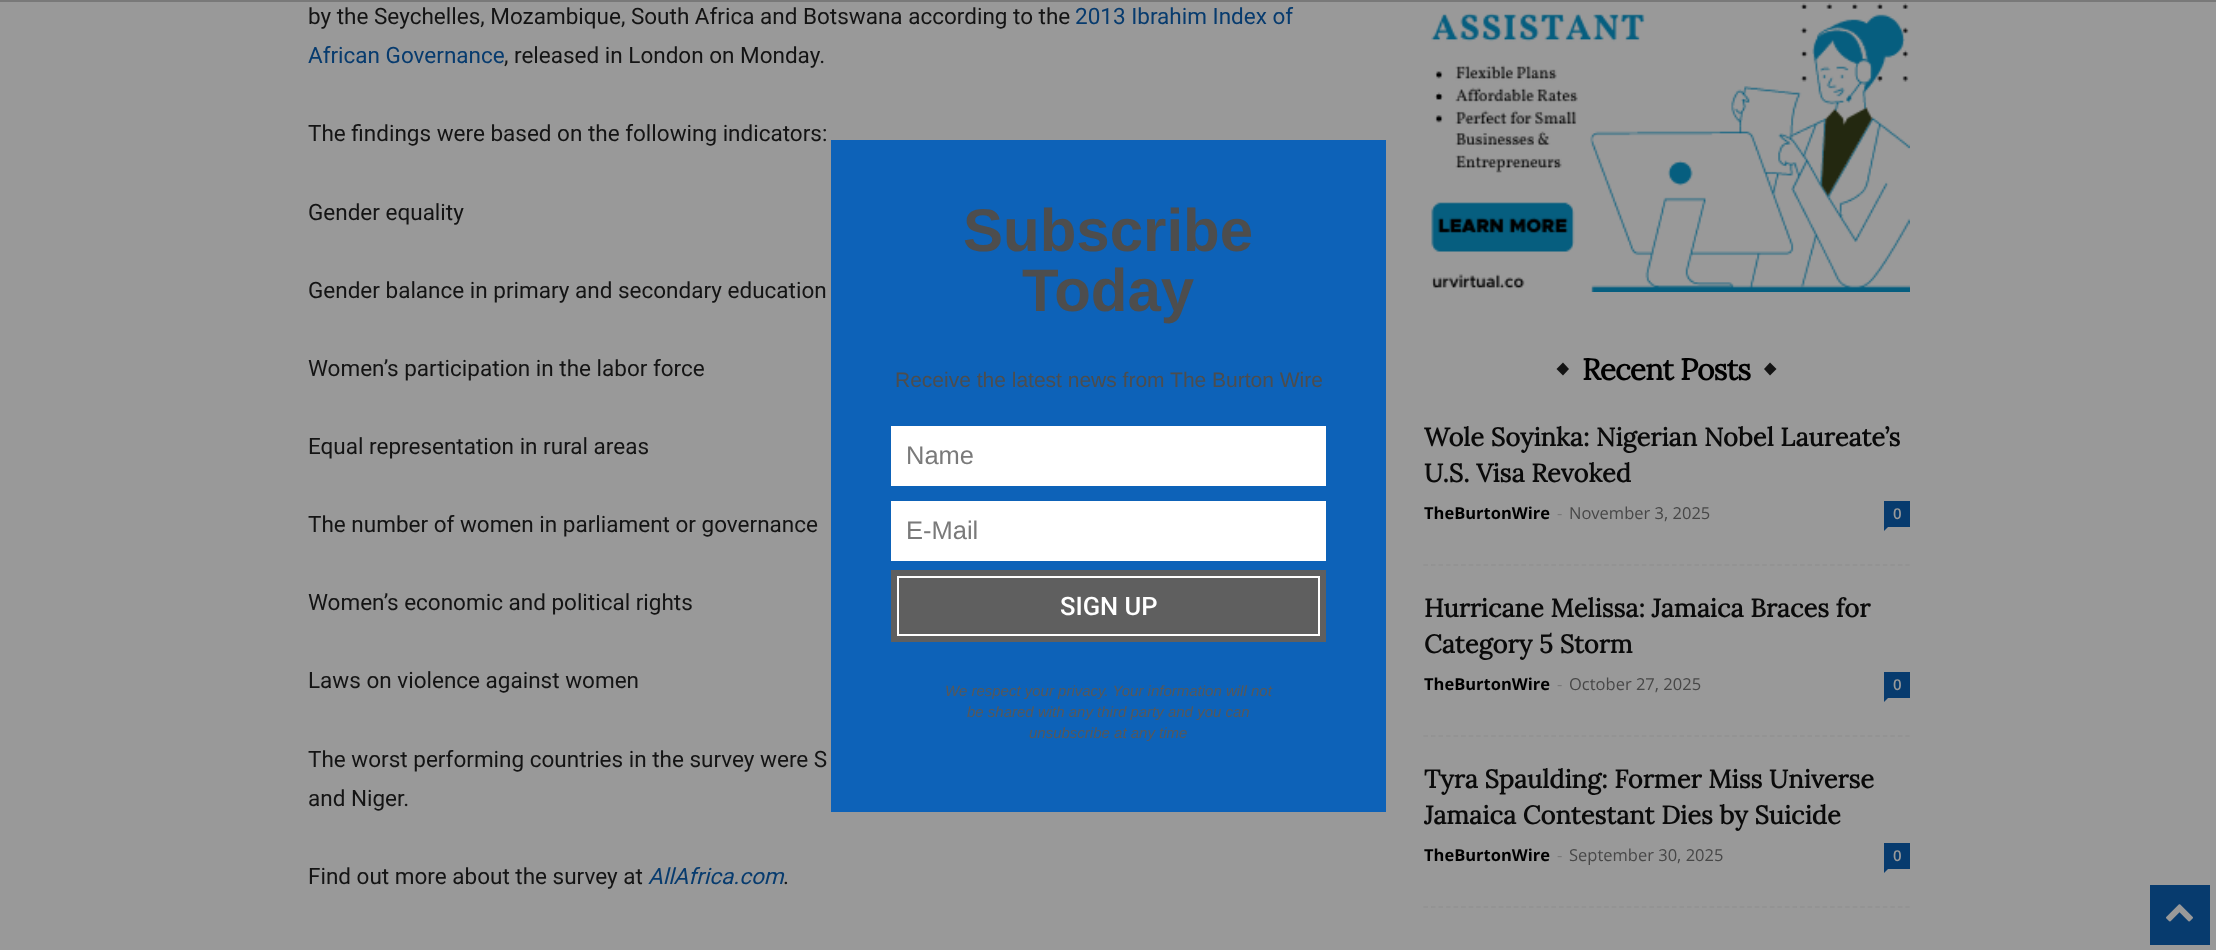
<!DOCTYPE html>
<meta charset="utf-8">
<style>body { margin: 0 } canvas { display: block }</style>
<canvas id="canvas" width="2216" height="950"></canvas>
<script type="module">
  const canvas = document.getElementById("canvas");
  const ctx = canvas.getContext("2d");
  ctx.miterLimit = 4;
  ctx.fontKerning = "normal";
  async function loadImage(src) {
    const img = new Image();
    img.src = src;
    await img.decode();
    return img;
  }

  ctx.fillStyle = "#999999";
  ctx.fillRect(0, 0, 2216, 950);
  ctx.fillStyle = "#797979";
  ctx.fillRect(0, 0, 2216, 2);
  ctx.font = "22.5px Roboto";
  ctx.fillStyle = "#141414";
  ctx.fillText("by the Seychelles, Mozambique, South Africa and Botswana according to the", 308, 24);
  ctx.fillStyle = "#073b6e";
  ctx.fillText("2013 Ibrahim Index of", 1075, 24);
  ctx.fillText("African Governance", 308, 63);
  ctx.fillStyle = "#141414";
  ctx.fillText(", released in London on Monday.", 504, 63);
  ctx.fillText("The findings were based on the following indicators:", 308, 141);
  ctx.fillText("Gender equality", 308, 220);
  ctx.fillText("Gender balance in primary and secondary education", 308, 298);
  ctx.fillText("Women’s participation in the labor force", 308, 376);
  ctx.fillText("Equal representation in rural areas", 308, 454);
  ctx.fillText("The number of women in parliament or governance", 308, 532);
  ctx.fillText("Women’s economic and political rights", 308, 610);
  ctx.fillText("Laws on violence against women", 308, 688);
  ctx.fillText("The worst performing countries in the survey were S", 308, 767);
  ctx.fillText("and Niger.", 308, 806);
  ctx.fillText("Find out more about the survey at", 308, 884);
  ctx.font = "italic 22.5px Roboto";
  ctx.fillStyle = "#073b6e";
  ctx.fillText("AllAfrica.com", 648, 884);
  ctx.font = "22.5px Roboto";
  ctx.fillStyle = "#141414";
  ctx.fillText(".", 783, 884);
  ctx.drawImage(await loadImage("img1.png"), 1431, 3, 479, 289);
  ctx.beginPath();
  ctx.moveTo(1563, 362.5);
  ctx.lineTo(1569, 369);
  ctx.lineTo(1563, 375.5);
  ctx.lineTo(1556.5, 369);
  ctx.closePath();
  ctx.fill();
  ctx.letterSpacing = "-0.9px";
  ctx.font = "bold 30px Lora";
  ctx.fillStyle = "#000000";
  ctx.fillText("Recent Posts", 1582, 380);
  ctx.fillStyle = "#141414";
  ctx.beginPath();
  ctx.moveTo(1770, 362.5);
  ctx.lineTo(1776.5, 369);
  ctx.lineTo(1770, 375.5);
  ctx.lineTo(1764, 369);
  ctx.closePath();
  ctx.fill();
  ctx.beginPath();
  ctx.moveTo(1423.5, 565);
  ctx.lineTo(1909.5, 565);
  ctx.strokeStyle = "#919191";
  ctx.lineWidth = 1.5;
  ctx.setLineDash([4.5, 3.03]);
  ctx.stroke();
  ctx.letterSpacing = "0px";
  ctx.font = "bold 25.5px Lora";
  ctx.fillStyle = "#0a0a0a";
  ctx.fillText("Wole Soyinka: Nigerian Nobel Laureate’s", 1424, 446);
  ctx.fillText("U.S. Visa Revoked", 1424, 482);
  ctx.font = "bold 16.5px Open Sans";
  ctx.fillStyle = "#000000";
  ctx.fillText("TheBurtonWire", 1424, 519);
  ctx.font = "16.5px Open Sans";
  ctx.fillStyle = "#7a7a7a";
  ctx.fillText("-", 1557, 519);
  ctx.fillStyle = "#474747";
  ctx.fillText("November 3, 2025", 1569, 519);
  ctx.fillStyle = "#073b6e";
  ctx.fillRect(1884, 501, 26, 26);
  ctx.font = "600 15px Open Sans";
  ctx.fillStyle = "#999999";
  ctx.fillText("0", 1893, 519);
  ctx.fillStyle = "#073b6e";
  ctx.beginPath();
  ctx.moveTo(1884, 526.5);
  ctx.lineTo(1888.5, 526.5);
  ctx.lineTo(1884, 531);
  ctx.closePath();
  ctx.fill();
  ctx.beginPath();
  ctx.moveTo(1423.5, 736);
  ctx.lineTo(1909.5, 736);
  ctx.stroke();
  ctx.font = "bold 25.5px Lora";
  ctx.fillStyle = "#0a0a0a";
  ctx.fillText("Hurricane Melissa: Jamaica Braces for", 1424, 617);
  ctx.fillText("Category 5 Storm", 1424, 653);
  ctx.font = "bold 16.5px Open Sans";
  ctx.fillStyle = "#000000";
  ctx.fillText("TheBurtonWire", 1424, 690);
  ctx.font = "16.5px Open Sans";
  ctx.fillStyle = "#7a7a7a";
  ctx.fillText("-", 1557, 690);
  ctx.fillStyle = "#474747";
  ctx.fillText("October 27, 2025", 1569, 690);
  ctx.fillStyle = "#073b6e";
  ctx.fillRect(1884, 672, 26, 26);
  ctx.font = "600 15px Open Sans";
  ctx.fillStyle = "#999999";
  ctx.fillText("0", 1893, 690);
  ctx.fillStyle = "#073b6e";
  ctx.beginPath();
  ctx.moveTo(1884, 697.5);
  ctx.lineTo(1888.5, 697.5);
  ctx.lineTo(1884, 702);
  ctx.closePath();
  ctx.fill();
  ctx.beginPath();
  ctx.moveTo(1423.5, 907);
  ctx.lineTo(1909.5, 907);
  ctx.stroke();
  ctx.font = "bold 25.5px Lora";
  ctx.fillStyle = "#0a0a0a";
  ctx.fillText("Tyra Spaulding: Former Miss Universe", 1424, 788);
  ctx.fillText("Jamaica Contestant Dies by Suicide", 1424, 824);
  ctx.font = "bold 16.5px Open Sans";
  ctx.fillStyle = "#000000";
  ctx.fillText("TheBurtonWire", 1424, 861);
  ctx.font = "16.5px Open Sans";
  ctx.fillStyle = "#7a7a7a";
  ctx.fillText("-", 1557, 861);
  ctx.fillStyle = "#474747";
  ctx.fillText("September 30, 2025", 1569, 861);
  ctx.fillStyle = "#073b6e";
  ctx.fillRect(1884, 843, 26, 26);
  ctx.font = "600 15px Open Sans";
  ctx.fillStyle = "#999999";
  ctx.fillText("0", 1893, 861);
  ctx.fillStyle = "#073b6e";
  ctx.beginPath();
  ctx.moveTo(1884, 868.5);
  ctx.lineTo(1888.5, 868.5);
  ctx.lineTo(1884, 873);
  ctx.closePath();
  ctx.fill();
  ctx.fillStyle = "#0d62b8";
  ctx.fillRect(831, 140, 555, 672);
  ctx.font = "bold 60px Liberation Sans";
  ctx.fillStyle = "#4d4d4d";
  ctx.fillText("Subscribe", 963, 251);
  ctx.fillText("Today", 1022, 311);
  ctx.font = "21px Liberation Sans";
  ctx.fillText("Receive the latest news from The Burton Wire", 895, 387);
  ctx.fillStyle = "#ffffff";
  ctx.fillRect(891, 426, 435, 60);
  ctx.font = "25.5px Liberation Sans";
  ctx.fillStyle = "#7a7a7a";
  ctx.fillText("Name", 906, 464);
  ctx.fillStyle = "#ffffff";
  ctx.fillRect(891, 501, 435, 60);
  ctx.fillStyle = "#7a7a7a";
  ctx.fillText("E-Mail", 906, 539);
  ctx.strokeStyle = "#5f5f5f";
  ctx.lineWidth = 6;
  ctx.setLineDash([]);
  ctx.strokeRect(894, 573, 429, 66);
  ctx.fillStyle = "#5f5f5f";
  ctx.beginPath();
  ctx.rect(898, 577, 421, 58);
  ctx.fill();
  ctx.strokeStyle = "#ffffff";
  ctx.lineWidth = 2;
  ctx.stroke();
  ctx.font = "500 25.5px Roboto";
  ctx.fillStyle = "#ffffff";
  ctx.fillText("SIGN UP", 1060, 615);
  ctx.font = "italic 15px Liberation Sans";
  ctx.fillStyle = "#585858";
  ctx.fillText("We respect your privacy. Your information will not", 945, 696);
  ctx.fillText("be shared with any third party and you can", 967, 717);
  ctx.fillText("unsubscribe at any time", 1029, 738);
  ctx.fillStyle = "#073b6e";
  ctx.fillRect(2150, 885, 60, 60);
  ctx.drawImage(await loadImage("img2.png"), 2166, 904, 27, 18);
</script>
